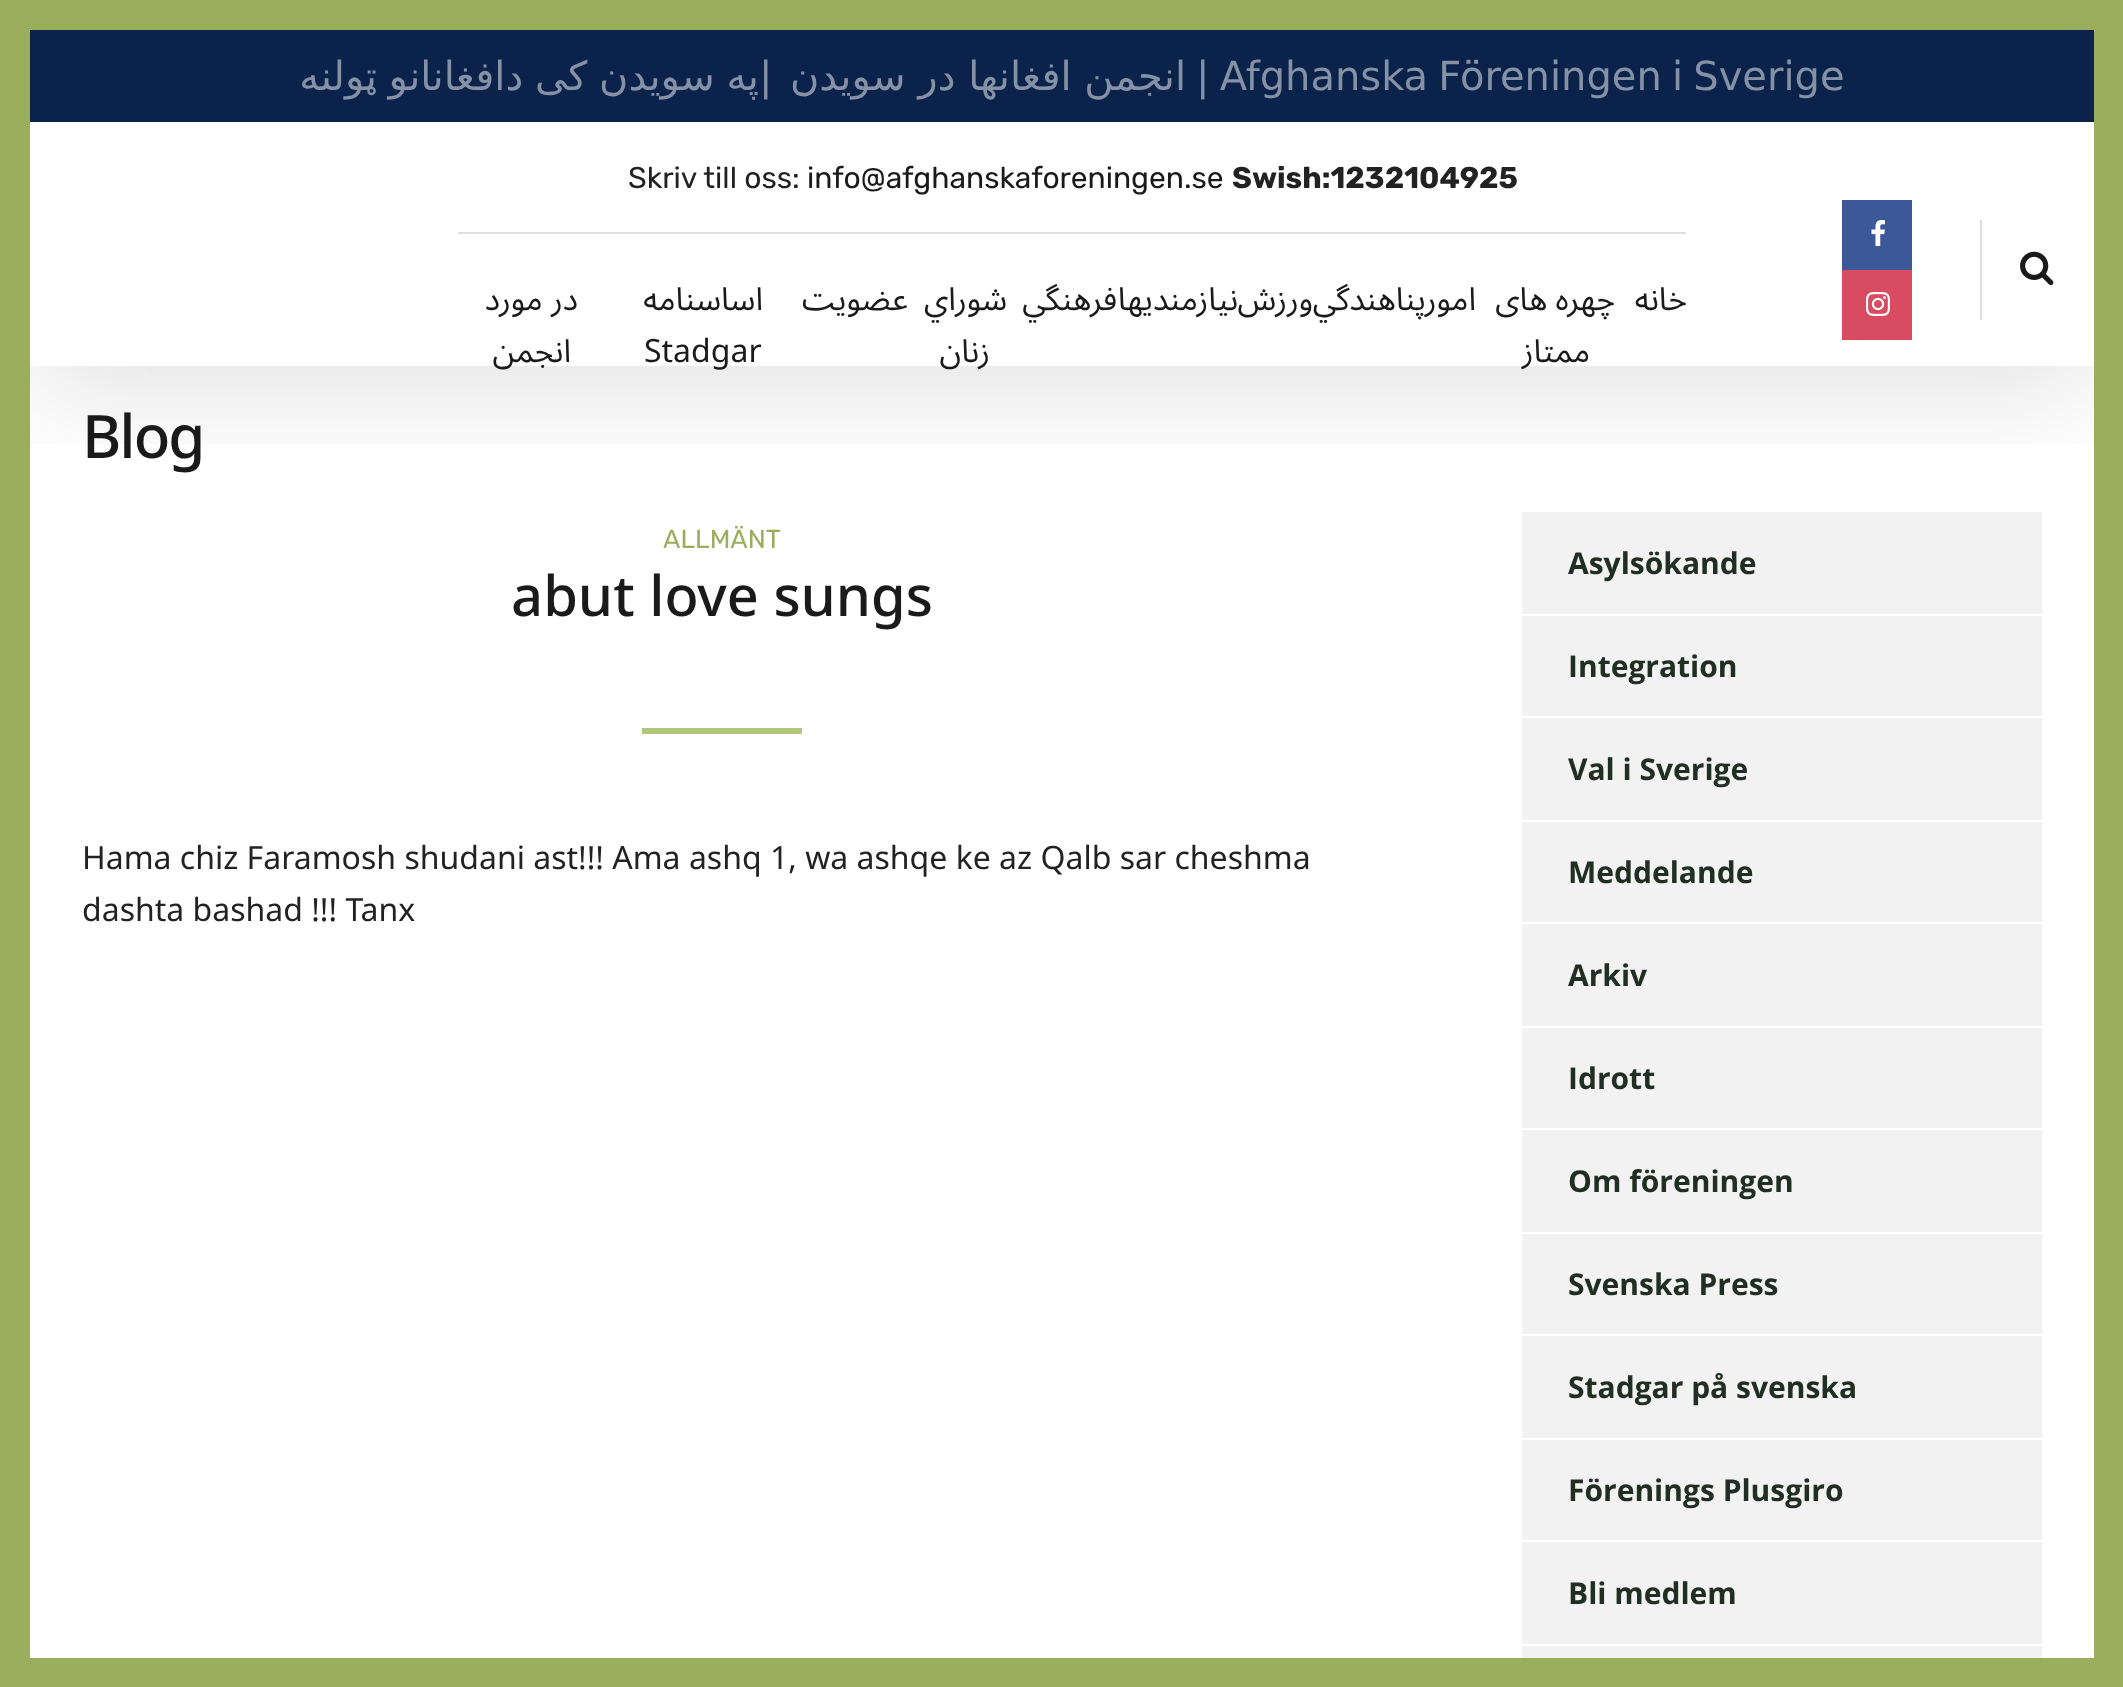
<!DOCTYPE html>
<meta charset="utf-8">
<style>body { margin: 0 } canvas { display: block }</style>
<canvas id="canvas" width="2123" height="1687"></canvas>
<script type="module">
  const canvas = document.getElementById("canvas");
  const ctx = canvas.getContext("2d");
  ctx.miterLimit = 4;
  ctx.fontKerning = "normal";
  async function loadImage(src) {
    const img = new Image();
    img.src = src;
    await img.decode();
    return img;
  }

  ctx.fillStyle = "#ffffff";
  ctx.fillRect(0, 0, 2123, 1687);
  ctx.fillStyle = "#f2f2f2";
  ctx.fillRect(1522, 512, 520, 102);
  ctx.save();
  ctx.beginPath();
  ctx.rect(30, 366, 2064, 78);
  ctx.clip();
  ctx.fillStyle = "rgba(0, 0, 0, 0.12)";
  ctx.filter = "blur(60px)";
  ctx.beginPath();
  ctx.rect(30, 142, 2064, 244);
  ctx.fill();
  ctx.filter = "none";
  ctx.restore();
  ctx.fillStyle = "#9aae5d";
  ctx.fillRect(0, 0, 30, 1687);
  ctx.fillRect(30, 0, 2064, 30);
  ctx.fillRect(2094, 0, 29, 1658);
  ctx.fillRect(30, 1658, 2093, 29);
  ctx.fillStyle = "#0b224a";
  ctx.fillRect(30, 30, 2064, 92);
  ctx.wordSpacing = "-1px";
  ctx.direction = "rtl";
  ctx.font = "40px DejaVu Sans";
  ctx.fillStyle = "#8591a5";
  ctx.fillText("په سویدن کی دافغانانو ټولنه", 759, 90);
  ctx.wordSpacing = "0px";
  ctx.direction = "ltr";
  ctx.fillText("|", 759, 90);
  ctx.direction = "rtl";
  ctx.fillText("انجمن افغانها در سویدن", 1186, 90);
  ctx.wordSpacing = "-2.5px";
  ctx.direction = "ltr";
  ctx.fillText("| Afghanska Föreningen i Sverige", 1196, 90);
  ctx.wordSpacing = "0px";
  ctx.font = "30px Rubik";
  ctx.fillStyle = "#222222";
  ctx.fillText("Skriv till oss:", 628, 188);
  ctx.fillStyle = "#1a1a1a";
  ctx.fillText("info@afghanskaforeningen.se", 807, 188);
  ctx.font = "bold 30px Rubik";
  ctx.fillStyle = "#222222";
  ctx.fillText("Swish:1232104925", 1232, 188);
  ctx.fillStyle = "#dedede";
  ctx.fillRect(458, 232, 1228, 2);
  ctx.direction = "rtl";
  ctx.font = "32px Noto Sans Arabic";
  ctx.fillStyle = "#1a1a1a";
  ctx.fillText("در مورد", 578, 310);
  ctx.fillText("انجمن", 571, 362);
  ctx.fillText("اساسنامه", 763, 310);
  ctx.direction = "ltr";
  ctx.fillText("Stadgar", 644, 362);
  ctx.direction = "rtl";
  ctx.fillText("عضویت", 908, 310);
  ctx.fillText("شوراي", 1007, 310);
  ctx.fillText("زنان", 990, 362);
  ctx.fillText("فرهنگي", 1117, 310);
  ctx.fillText("نيازمنديها", 1238, 310);
  ctx.fillText("ورزش", 1313, 310);
  ctx.fillText("امورپناهندگي", 1476, 310);
  ctx.fillText("چهره های", 1615, 310);
  ctx.fillText("ممتاز", 1590, 362);
  ctx.fillText("خانه", 1687, 310);
  ctx.fillStyle = "#3b5998";
  ctx.fillRect(1842, 200, 70, 70);
  ctx.drawImage(await loadImage("img1.png"), 1871, 220, 14, 26);
  ctx.fillStyle = "#d84b60";
  ctx.fillRect(1842, 270, 70, 70);
  ctx.drawImage(await loadImage("img2.png"), 1866, 292, 24, 24);
  ctx.fillStyle = "#dedede";
  ctx.fillRect(1980, 220, 2, 100);
  ctx.drawImage(await loadImage("img3.png"), 2020, 251, 34, 35);
  ctx.letterSpacing = "-2px";
  ctx.direction = "ltr";
  ctx.font = "500 60px Noto Sans Arabic";
  ctx.fillStyle = "#1a1a1a";
  ctx.fillText("Blog", 82, 458);
  ctx.letterSpacing = "0px";
  ctx.font = "26px Rubik";
  ctx.fillStyle = "#9aae5d";
  ctx.fillText("ALLMÄNT", 663, 548);
  ctx.font = "500 56px Noto Sans Arabic";
  ctx.fillStyle = "#1a1a1a";
  ctx.fillText("abut love sungs", 511, 616);
  ctx.fillStyle = "#b3c77a";
  ctx.fillRect(642, 728, 160, 6);
  ctx.font = "32px Noto Sans Arabic";
  ctx.fillStyle = "#222222";
  ctx.fillText("Hama chiz Faramosh shudani ast!!! Ama ashq 1, wa ashqe ke az Qalb sar cheshma", 82, 869);
  ctx.fillText("dashta bashad !!! Tanx", 82, 921);
  ctx.font = "bold 30px Open Sans";
  ctx.fillStyle = "#202e24";
  ctx.fillText("Asylsökande", 1568, 574);
  ctx.fillStyle = "#f2f2f2";
  ctx.fillRect(1522, 616, 520, 100);
  ctx.fillStyle = "#202e24";
  ctx.fillText("Integration", 1568, 677);
  ctx.fillStyle = "#f2f2f2";
  ctx.fillRect(1522, 718, 520, 102);
  ctx.fillStyle = "#202e24";
  ctx.fillText("Val i Sverige", 1568, 780);
  ctx.fillStyle = "#f2f2f2";
  ctx.fillRect(1522, 822, 520, 100);
  ctx.fillStyle = "#202e24";
  ctx.fillText("Meddelande", 1568, 883);
  ctx.fillStyle = "#f2f2f2";
  ctx.fillRect(1522, 924, 520, 102);
  ctx.fillStyle = "#202e24";
  ctx.fillText("Arkiv", 1568, 986);
  ctx.fillStyle = "#f2f2f2";
  ctx.fillRect(1522, 1028, 520, 100);
  ctx.fillStyle = "#202e24";
  ctx.fillText("Idrott", 1568, 1089);
  ctx.fillStyle = "#f2f2f2";
  ctx.fillRect(1522, 1130, 520, 102);
  ctx.fillStyle = "#202e24";
  ctx.fillText("Om föreningen", 1568, 1192);
  ctx.fillStyle = "#f2f2f2";
  ctx.fillRect(1522, 1234, 520, 100);
  ctx.fillStyle = "#202e24";
  ctx.fillText("Svenska Press", 1568, 1295);
  ctx.fillStyle = "#f2f2f2";
  ctx.fillRect(1522, 1336, 520, 102);
  ctx.fillStyle = "#202e24";
  ctx.fillText("Stadgar på svenska", 1568, 1398);
  ctx.fillStyle = "#f2f2f2";
  ctx.fillRect(1522, 1440, 520, 100);
  ctx.fillStyle = "#202e24";
  ctx.fillText("Förenings Plusgiro", 1568, 1501);
  ctx.fillStyle = "#f2f2f2";
  ctx.fillRect(1522, 1542, 520, 102);
  ctx.fillStyle = "#202e24";
  ctx.fillText("Bli medlem", 1568, 1604);
  ctx.fillStyle = "#f2f2f2";
  ctx.fillRect(1522, 1646, 520, 12);
</script>
